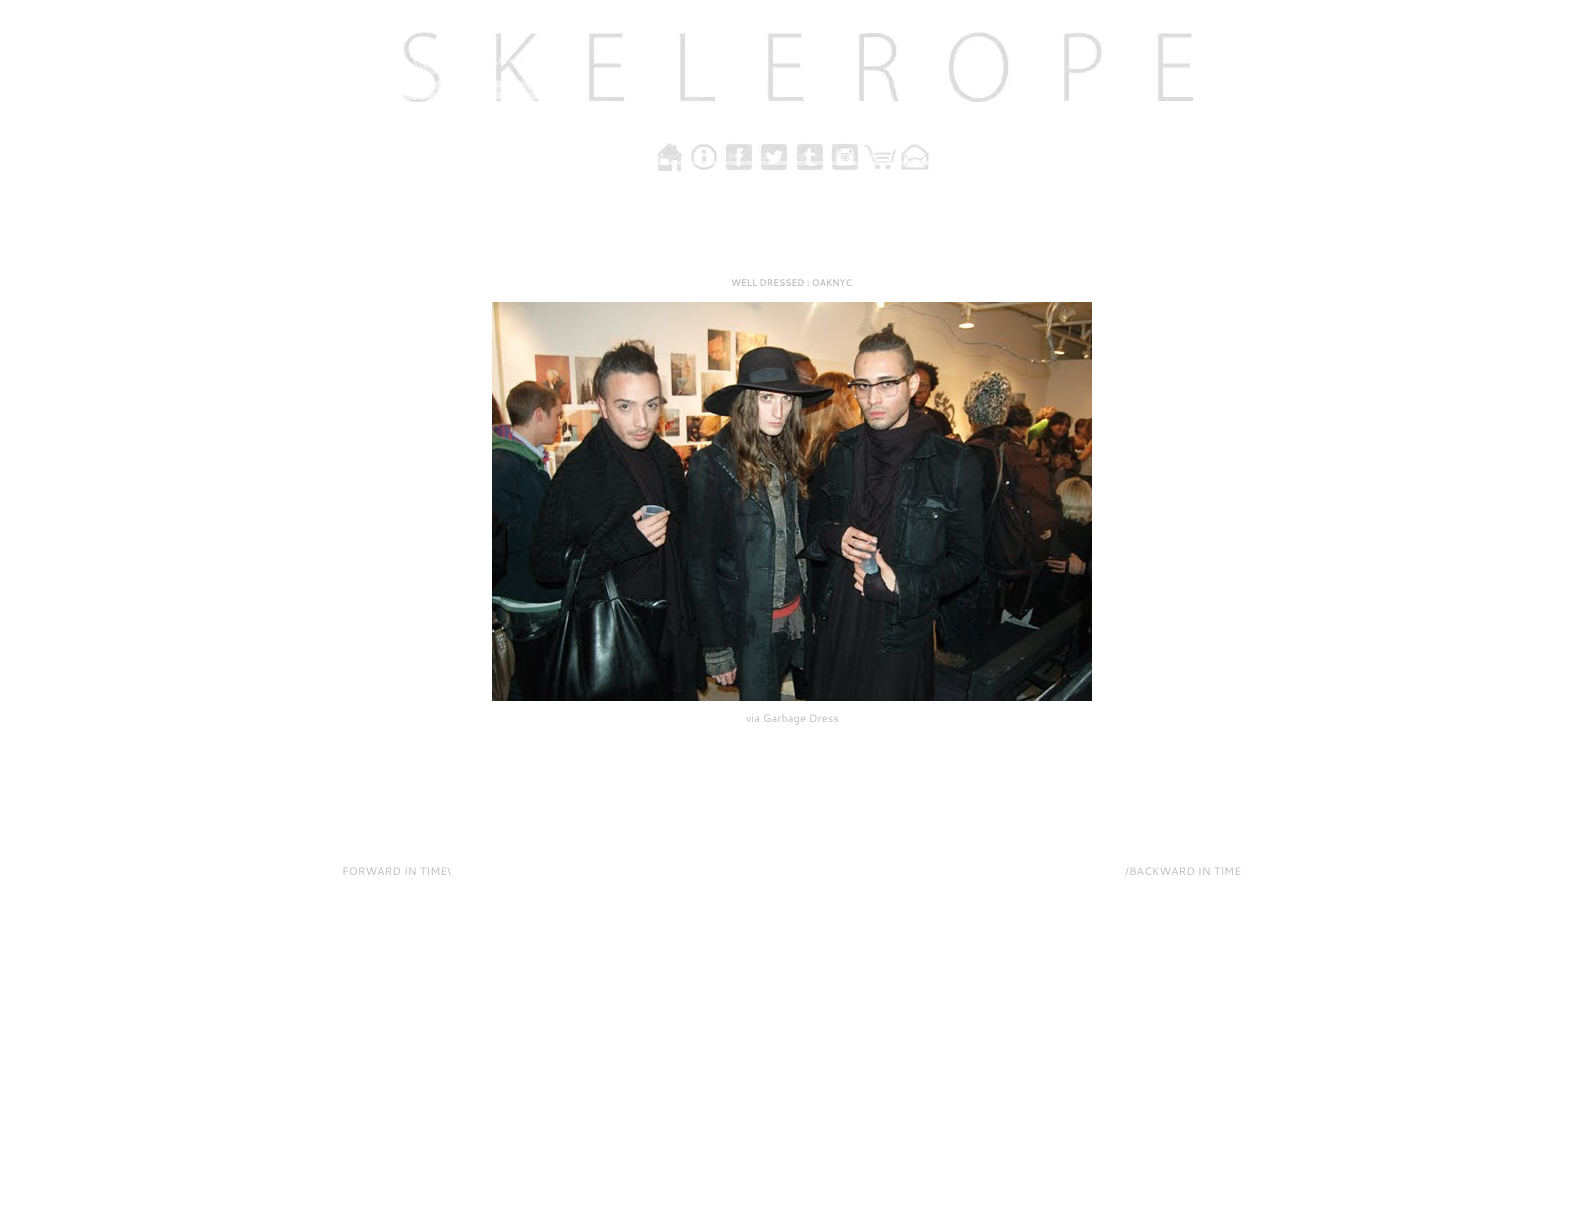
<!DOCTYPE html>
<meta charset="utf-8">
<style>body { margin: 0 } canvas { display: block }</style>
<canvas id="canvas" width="1584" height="1219"></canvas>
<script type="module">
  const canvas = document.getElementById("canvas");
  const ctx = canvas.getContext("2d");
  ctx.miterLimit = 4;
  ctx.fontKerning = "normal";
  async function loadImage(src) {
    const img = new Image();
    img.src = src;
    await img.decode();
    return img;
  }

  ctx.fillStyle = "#ffffff";
  ctx.fillRect(0, 0, 1584, 1219);
  ctx.drawImage(await loadImage("img1.png"), 403, 32, 791, 71);
  ctx.drawImage(await loadImage("img2.png"), 657, 143, 28, 30);
  ctx.drawImage(await loadImage("img3.png"), 690, 144, 28, 26);
  ctx.drawImage(await loadImage("img4.png"), 723, 142, 29, 31);
  ctx.drawImage(await loadImage("img5.png"), 758, 144, 32, 29);
  ctx.drawImage(await loadImage("img6.png"), 794, 142, 32, 31);
  ctx.drawImage(await loadImage("img7.png"), 830, 142, 31, 29);
  ctx.drawImage(await loadImage("img8.png"), 864, 145, 32, 25);
  ctx.drawImage(await loadImage("img9.png"), 901, 144, 29, 26);
  ctx.font = "bold 9.25px Cantarell";
  ctx.fillStyle = "#bfbfbf";
  ctx.fillText("WELL DRESSED : OAKNYC", 731, 286);
  ctx.drawImage(await loadImage("img10.png"), 492, 302, 600, 399);
  ctx.font = "11px Cantarell";
  ctx.fillText("via Garbage Dress", 746, 722);
  ctx.fillText("FORWARD IN TIME\\", 342, 875);
  ctx.fillText("/BACKWARD IN TIME", 1125, 875);
</script>
